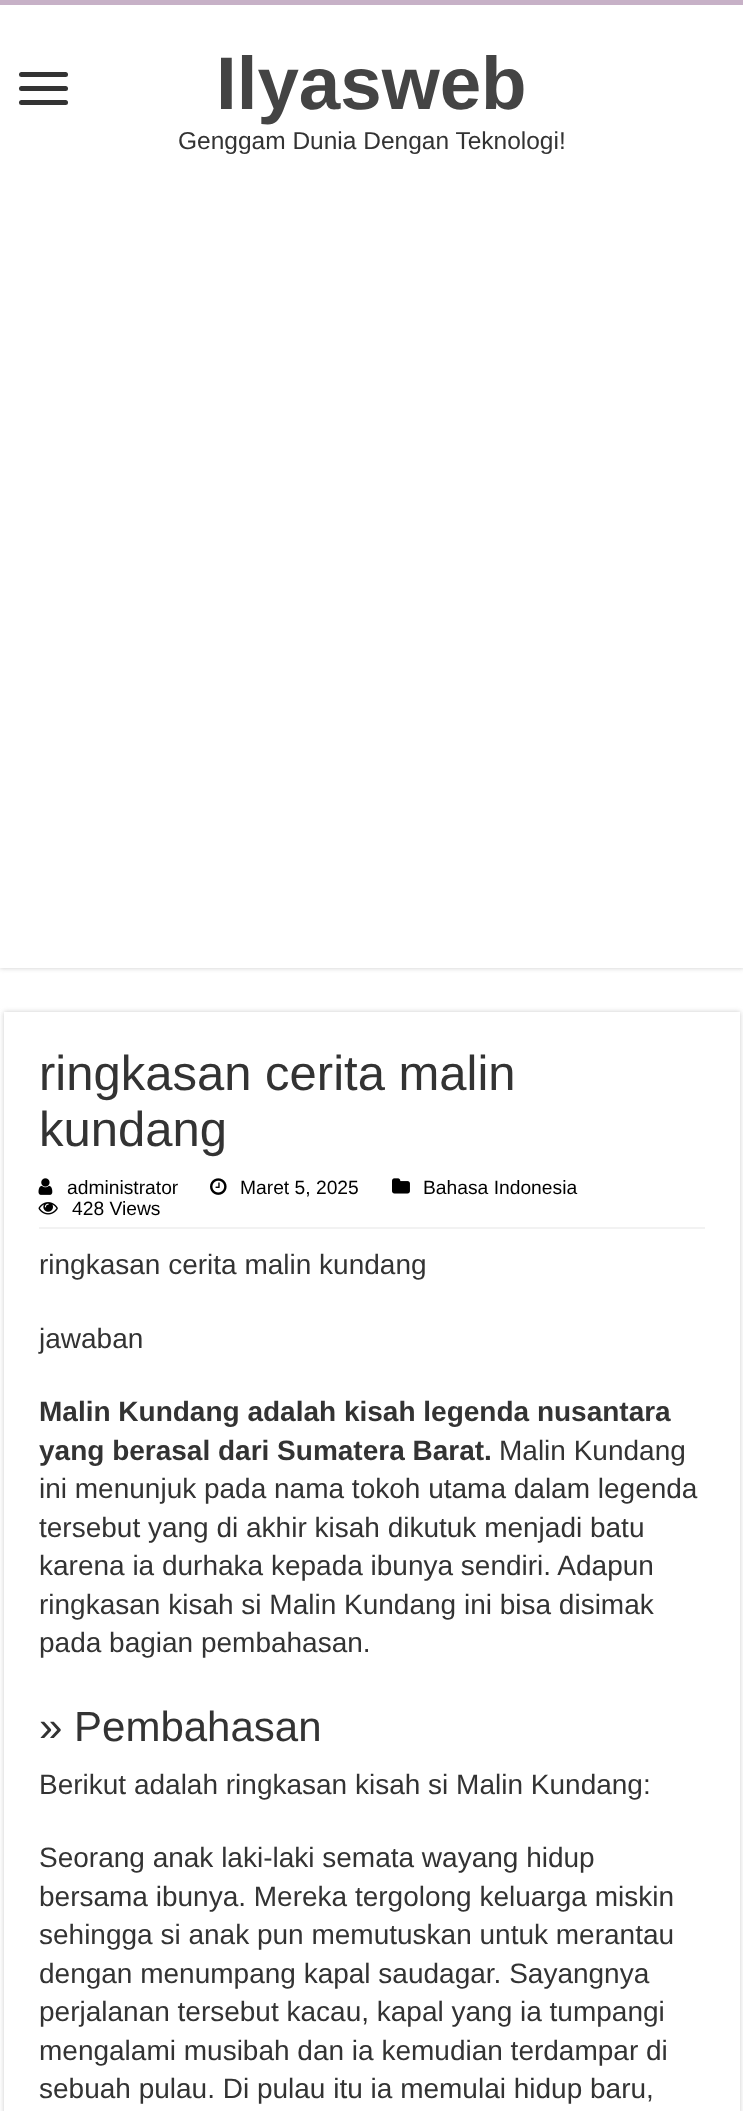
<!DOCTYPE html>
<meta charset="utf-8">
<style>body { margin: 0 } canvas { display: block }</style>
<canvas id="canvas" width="743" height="2111"></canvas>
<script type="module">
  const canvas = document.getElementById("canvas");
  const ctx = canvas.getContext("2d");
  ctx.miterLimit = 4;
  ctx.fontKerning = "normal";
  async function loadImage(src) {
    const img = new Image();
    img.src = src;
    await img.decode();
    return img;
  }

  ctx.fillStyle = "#ffffff";
  ctx.fillRect(0, 0, 743, 2111);
  ctx.fillStyle = "#cacaca";
  ctx.filter = "blur(2.5px)";
  ctx.beginPath();
  ctx.rect(0, 0, 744, 968);
  ctx.fill();
  ctx.filter = "none";
  ctx.fillStyle = "#ffffff";
  ctx.fillRect(0, 5, 743, 963);
  ctx.fillStyle = "#c7b1c7";
  ctx.fillRect(0, 0, 743, 5);
  ctx.fillStyle = "#333333";
  ctx.beginPath();
  ctx.roundRect(19, 72, 49, 5, 2.5);
  ctx.fill();
  ctx.beginPath();
  ctx.roundRect(19, 86, 49, 5, 2.5);
  ctx.fill();
  ctx.beginPath();
  ctx.roundRect(19, 100, 49, 5, 2.5);
  ctx.fill();
  ctx.font = "bold 74.5px Liberation Sans";
  ctx.fillStyle = "#444444";
  ctx.fillText("Ilyasweb", 216, 109);
  ctx.font = "24.5px Liberation Sans";
  ctx.fillStyle = "#333333";
  ctx.fillText("Genggam Dunia Dengan Teknologi!", 178, 149);
  ctx.save();
  ctx.beginPath();
  ctx.moveTo(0, 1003);
  ctx.lineTo(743, 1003);
  ctx.lineTo(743, 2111);
  ctx.lineTo(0, 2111);
  ctx.closePath();
  ctx.moveTo(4, 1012);
  ctx.lineTo(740, 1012);
  ctx.lineTo(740, 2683);
  ctx.lineTo(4, 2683);
  ctx.closePath();
  ctx.clip("evenodd");
  ctx.fillStyle = "#cacaca";
  ctx.filter = "blur(2.5px)";
  ctx.beginPath();
  ctx.rect(4, 1012, 736, 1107);
  ctx.fill();
  ctx.filter = "none";
  ctx.restore();
  ctx.font = "49px Liberation Sans";
  ctx.fillText("ringkasan cerita malin", 39, 1090);
  ctx.fillText("kundang", 39, 1146);
  ctx.fillStyle = "#f2f2f2";
  ctx.fillRect(39, 1227, 666, 2);
  ctx.drawImage(await loadImage("img1.png"), 38, 1178, 15, 17);
  ctx.font = "19.25px Liberation Sans";
  ctx.fillStyle = "#000000";
  ctx.fillText("administrator", 67, 1194);
  ctx.drawImage(await loadImage("img2.png"), 210, 1178, 17, 17);
  ctx.fillText("Maret 5, 2025", 240, 1194);
  ctx.drawImage(await loadImage("img3.png"), 392, 1178, 18, 16);
  ctx.fillText("Bahasa Indonesia", 423, 1194);
  ctx.drawImage(await loadImage("img4.png"), 38, 1202, 20, 13);
  ctx.fillText("428 Views", 72, 1215);
  ctx.font = "28px Liberation Sans";
  ctx.fillStyle = "#333333";
  ctx.fillText("ringkasan cerita malin kundang", 39, 1274);
  ctx.fillText("jawaban", 39, 1348);
  ctx.font = "bold 28px Liberation Sans";
  ctx.fillText("Malin Kundang adalah kisah legenda nusantara", 39, 1421);
  ctx.fillText("yang berasal dari Sumatera Barat.", 39, 1460);
  ctx.font = "28px Liberation Sans";
  ctx.fillText("Malin Kundang", 499, 1460);
  ctx.fillText("ini menunjuk pada nama tokoh utama dalam legenda", 39, 1498);
  ctx.fillText("tersebut yang di akhir kisah dikutuk menjadi batu", 39, 1537);
  ctx.fillText("karena ia durhaka kepada ibunya sendiri. Adapun", 39, 1575);
  ctx.fillText("ringkasan kisah si Malin Kundang ini bisa disimak", 39, 1614);
  ctx.fillText("pada bagian pembahasan.", 39, 1652);
  ctx.font = "42px Liberation Sans";
  ctx.fillText("» Pembahasan", 39, 1741);
  ctx.font = "28px Liberation Sans";
  ctx.fillText("Berikut adalah ringkasan kisah si Malin Kundang:", 39, 1794);
  ctx.fillText("Seorang anak laki-laki semata wayang hidup", 39, 1867);
  ctx.fillText("bersama ibunya. Mereka tergolong keluarga miskin", 39, 1906);
  ctx.fillText("sehingga si anak pun memutuskan untuk merantau", 39, 1944);
  ctx.fillText("dengan menumpang kapal saudagar. Sayangnya", 39, 1983);
  ctx.fillText("perjalanan tersebut kacau, kapal yang ia tumpangi", 39, 2021);
  ctx.fillText("mengalami musibah dan ia kemudian terdampar di", 39, 2060);
  ctx.fillText("sebuah pulau. Di pulau itu ia memulai hidup baru,", 39, 2098);
</script>
